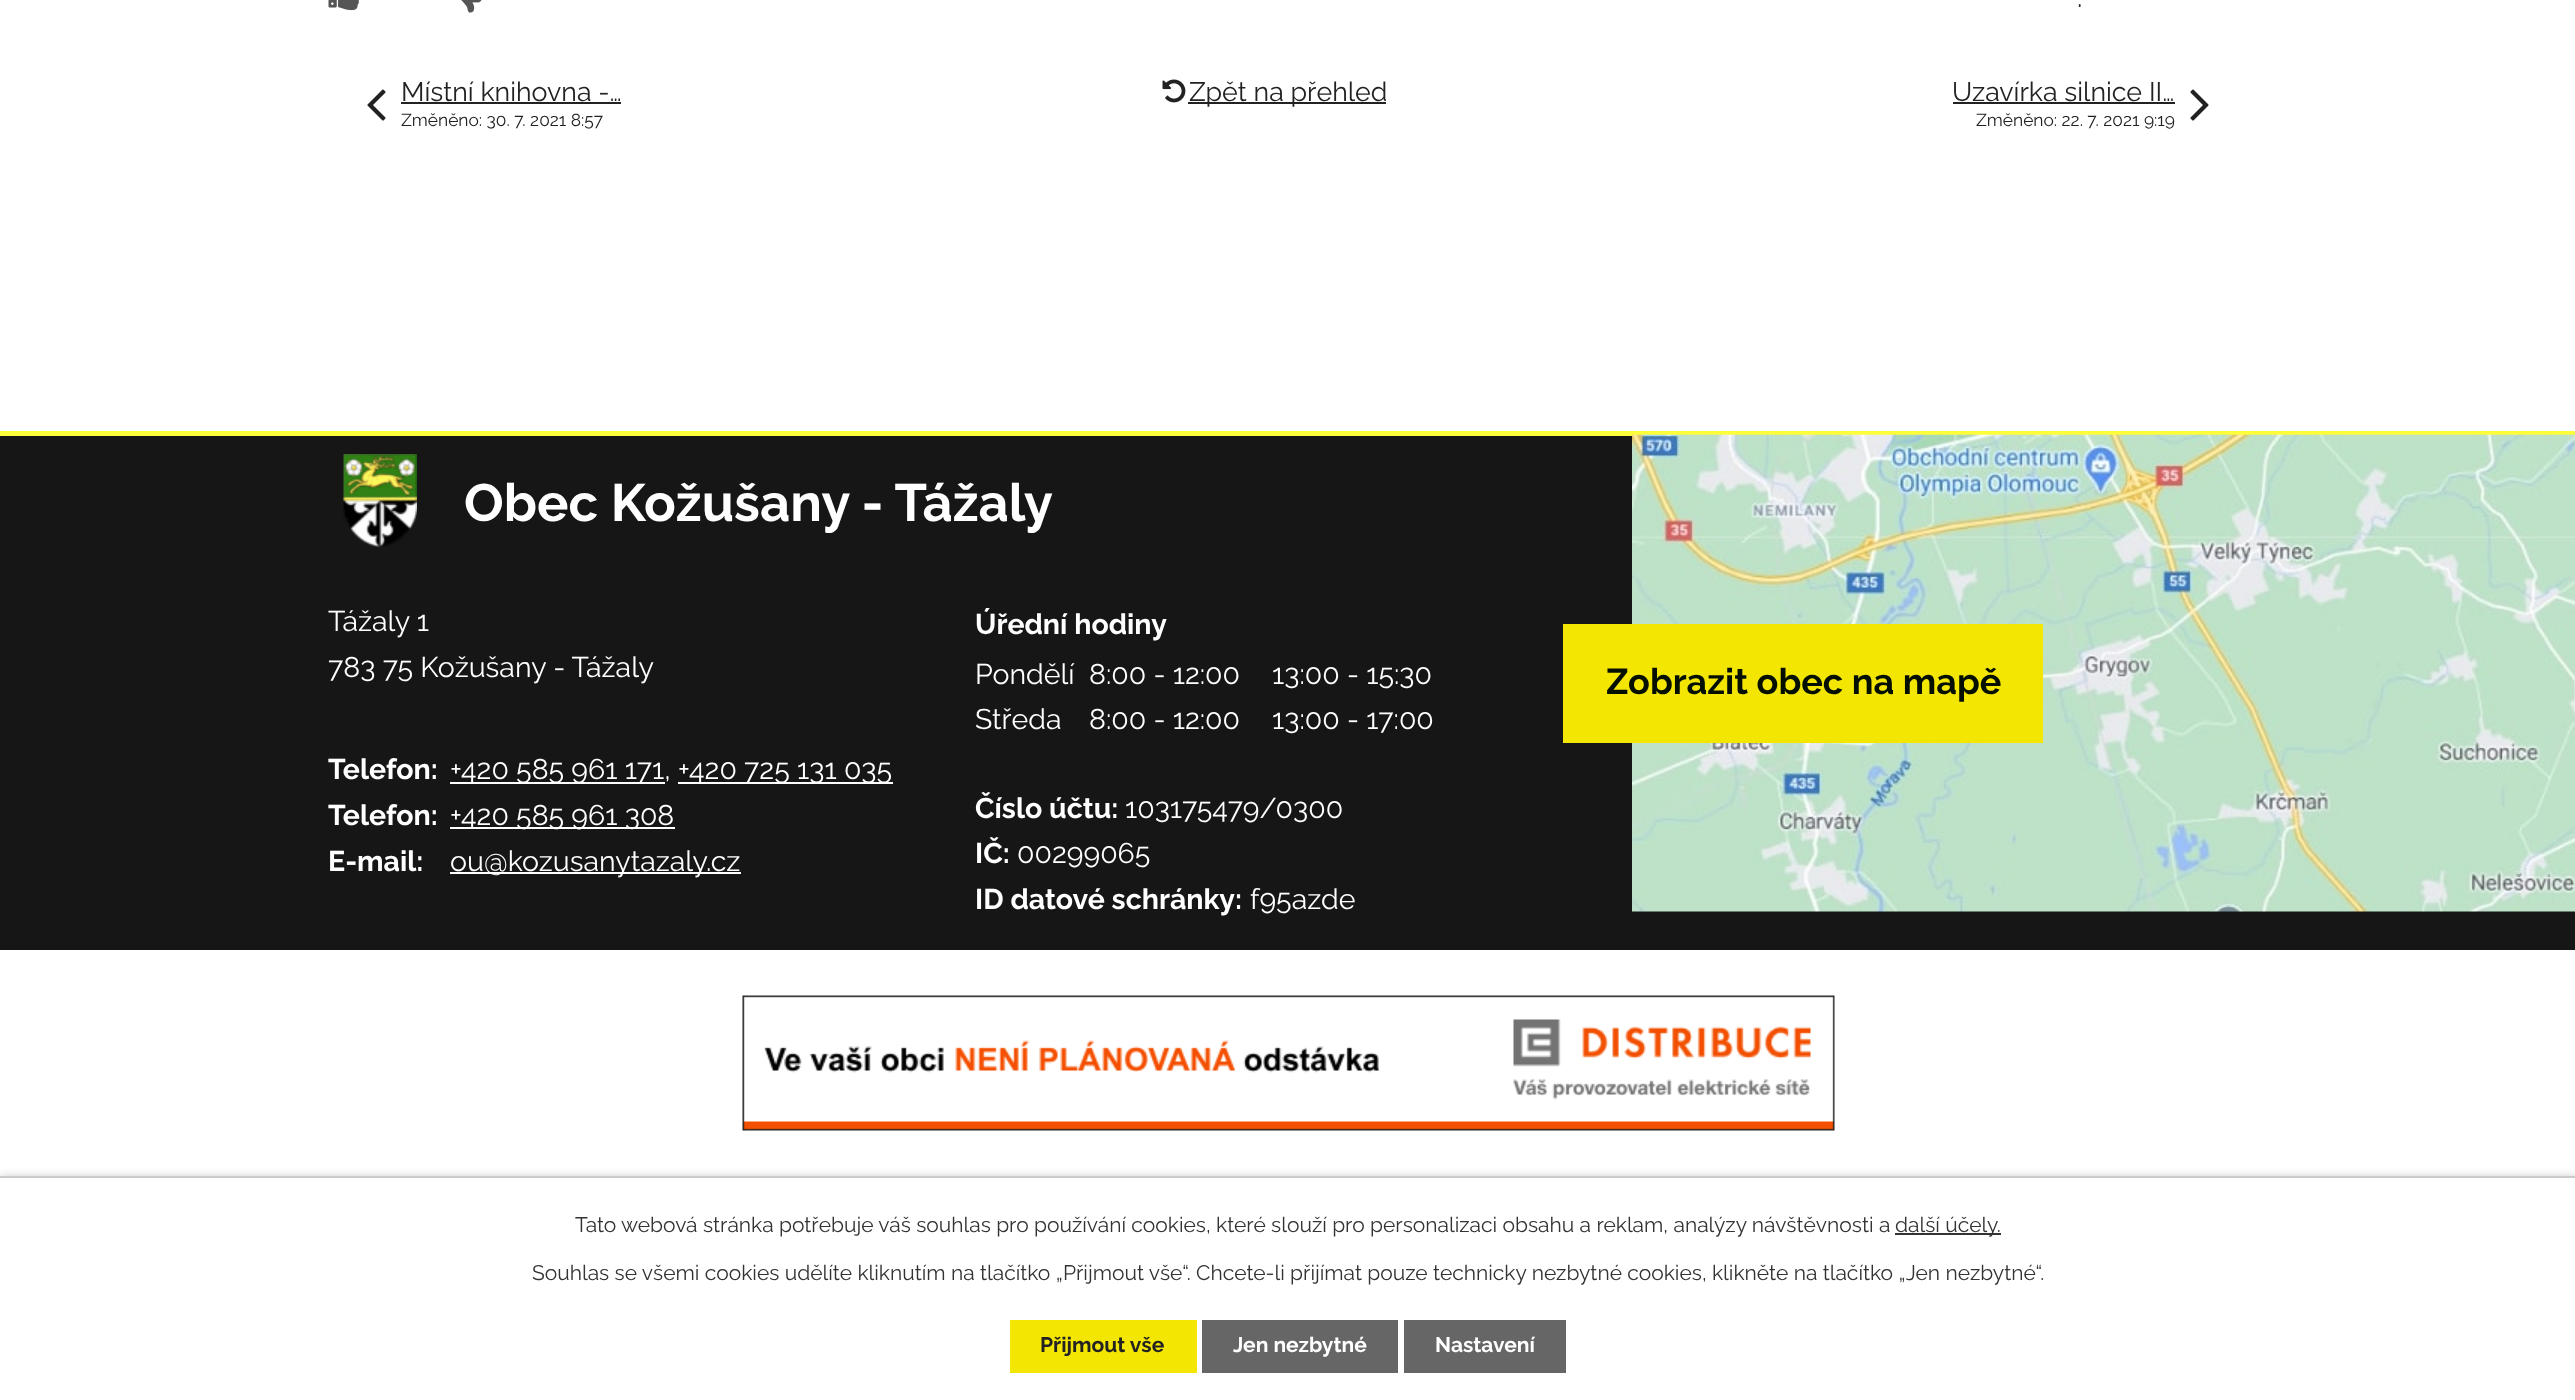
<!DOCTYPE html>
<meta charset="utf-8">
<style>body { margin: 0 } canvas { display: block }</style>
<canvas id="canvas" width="2575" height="1400"></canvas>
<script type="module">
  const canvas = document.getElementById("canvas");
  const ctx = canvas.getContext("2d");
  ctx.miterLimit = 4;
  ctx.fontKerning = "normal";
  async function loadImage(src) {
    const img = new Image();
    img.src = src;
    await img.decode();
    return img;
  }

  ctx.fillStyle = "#ffffff";
  ctx.fillRect(0, 0, 2575, 1400);
  ctx.drawImage(await loadImage("img1.png"), 328, 0, 31, 11);
  ctx.drawImage(await loadImage("img2.png"), 461, 0, 21, 13);
  ctx.font = "28.5px Raleway";
  ctx.fillStyle = "#222222";
  ctx.fillText(".", 2077, 7);
  ctx.drawImage(await loadImage("img3.png"), 367, 89, 19, 32);
  ctx.font = "26.75px Raleway";
  ctx.fillText("Místní knihovna -…", 401, 101);
  ctx.fillRect(401, 102, 220, 2);
  ctx.font = "17.4px Raleway";
  ctx.fillText("Změněno: 30. 7. 2021 8:57", 401, 126);
  ctx.drawImage(await loadImage("img4.png"), 1162, 79, 24, 24);
  ctx.fillRect(1188, 102, 198, 2);
  ctx.font = "26.75px Raleway";
  ctx.fillText("Zpět na přehled", 1189, 101);
  ctx.fillText("Uzavírka silnice II…", 1952, 101);
  ctx.fillRect(1953, 102, 222, 2);
  ctx.font = "17.4px Raleway";
  ctx.fillText("Změněno: 22. 7. 2021 9:19", 1976, 126);
  ctx.drawImage(await loadImage("img5.png"), 2190, 89, 19, 32);
  ctx.fillStyle = "#161616";
  ctx.fillRect(0, 436, 2575, 514);
  ctx.fillStyle = "#fdfd3b";
  ctx.fillRect(0, 431, 2575, 5);
  ctx.drawImage(await loadImage("img6.png"), 343, 454, 74, 93);
  ctx.font = "bold 52.5px Raleway";
  ctx.fillStyle = "#ffffff";
  ctx.fillText("Obec Kožušany - Tážaly", 464, 521);
  ctx.font = "28.5px Raleway";
  ctx.fillText("Tážaly 1", 328, 631);
  ctx.fillText("783 75 Kožušany - Tážaly", 328, 677);
  ctx.font = "bold 28.5px Raleway";
  ctx.fillText("Telefon:", 328, 779);
  ctx.fillRect(450, 782, 215, 2);
  ctx.font = "28.5px Raleway";
  ctx.fillText("+420 585 961 171,", 450, 779);
  ctx.fillRect(678, 782, 215, 2);
  ctx.fillText("+420 725 131 035", 678, 779);
  ctx.font = "bold 28.5px Raleway";
  ctx.fillText("Telefon:", 328, 825);
  ctx.fillRect(450, 827, 225, 2);
  ctx.font = "28.5px Raleway";
  ctx.fillText("+420 585 961 308", 450, 825);
  ctx.font = "bold 28.5px Raleway";
  ctx.fillText("E-mail:", 328, 871);
  ctx.fillRect(450, 872, 291, 2);
  ctx.font = "28.5px Raleway";
  ctx.fillText("ou@kozusanytazaly.cz", 450, 871);
  ctx.font = "bold 28.5px Raleway";
  ctx.fillText("Úřední hodiny", 975, 634);
  ctx.font = "28.5px Raleway";
  ctx.fillText("Pondělí", 975, 684);
  ctx.fillText("8:00 - 12:00", 1089, 684);
  ctx.fillText("13:00 - 15:30", 1272, 684);
  ctx.fillText("Středa", 975, 729);
  ctx.fillText("8:00 - 12:00", 1089, 729);
  ctx.fillText("13:00 - 17:00", 1272, 729);
  ctx.font = "bold 28.5px Raleway";
  ctx.fillText("Číslo účtu:", 975, 818);
  ctx.font = "28.5px Raleway";
  ctx.fillText("103175479/0300", 1125, 818);
  ctx.font = "bold 28.5px Raleway";
  ctx.fillText("IČ:", 975, 863);
  ctx.font = "28.5px Raleway";
  ctx.fillText("00299065", 1017, 863);
  ctx.font = "bold 28.5px Raleway";
  ctx.fillText("ID datové schránky:", 975, 909);
  ctx.font = "28.5px Raleway";
  ctx.fillText("f95azde", 1250, 909);
  ctx.drawImage(await loadImage("img7.png"), 1632, 434, 943, 478);
  ctx.fillStyle = "#f3e603";
  ctx.fillRect(1563, 624, 480, 119);
  ctx.font = "bold 36px Raleway";
  ctx.fillStyle = "#040f00";
  ctx.fillText("Zobrazit obec na mapě", 1606, 694);
  ctx.drawImage(await loadImage("img8.png"), 742, 995, 1093, 136);
  ctx.fillStyle = "rgba(0, 0, 0, 0.2)";
  ctx.filter = "blur(4px)";
  ctx.beginPath();
  ctx.rect(0, 1176, 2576, 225);
  ctx.fill();
  ctx.filter = "none";
  ctx.fillStyle = "#ffffff";
  ctx.fillRect(0, 1178, 2575, 222);
  ctx.fillStyle = "#cccccc";
  ctx.fillRect(0, 1176, 2575, 2);
  ctx.font = "21px Raleway";
  ctx.fillStyle = "#333333";
  ctx.fillText("Tato webová stránka potřebuje váš souhlas pro používání cookies, které slouží pro personalizaci obsahu a reklam, analýzy návštěvnosti a", 575, 1232);
  ctx.fillRect(1895, 1233, 106, 2);
  ctx.fillText("další účely.", 1895, 1232);
  ctx.fillText("Souhlas se všemi cookies udělíte kliknutím na tlačítko „Přijmout vše“. Chcete-li přijímat pouze technicky nezbytné cookies, klikněte na tlačítko „Jen nezbytné“.", 532, 1280);
  ctx.fillStyle = "#f3e603";
  ctx.fillRect(1010, 1320, 187, 53);
  ctx.font = "bold 21px Raleway";
  ctx.fillStyle = "#222222";
  ctx.fillText("Přijmout vše", 1040, 1352);
  ctx.fillStyle = "#666666";
  ctx.fillRect(1202, 1320, 196, 53);
  ctx.fillStyle = "#ffffff";
  ctx.fillText("Jen nezbytné", 1233, 1352);
  ctx.fillStyle = "#666666";
  ctx.fillRect(1404, 1320, 162, 53);
  ctx.fillStyle = "#ffffff";
  ctx.fillText("Nastavení", 1435, 1352);
</script>
